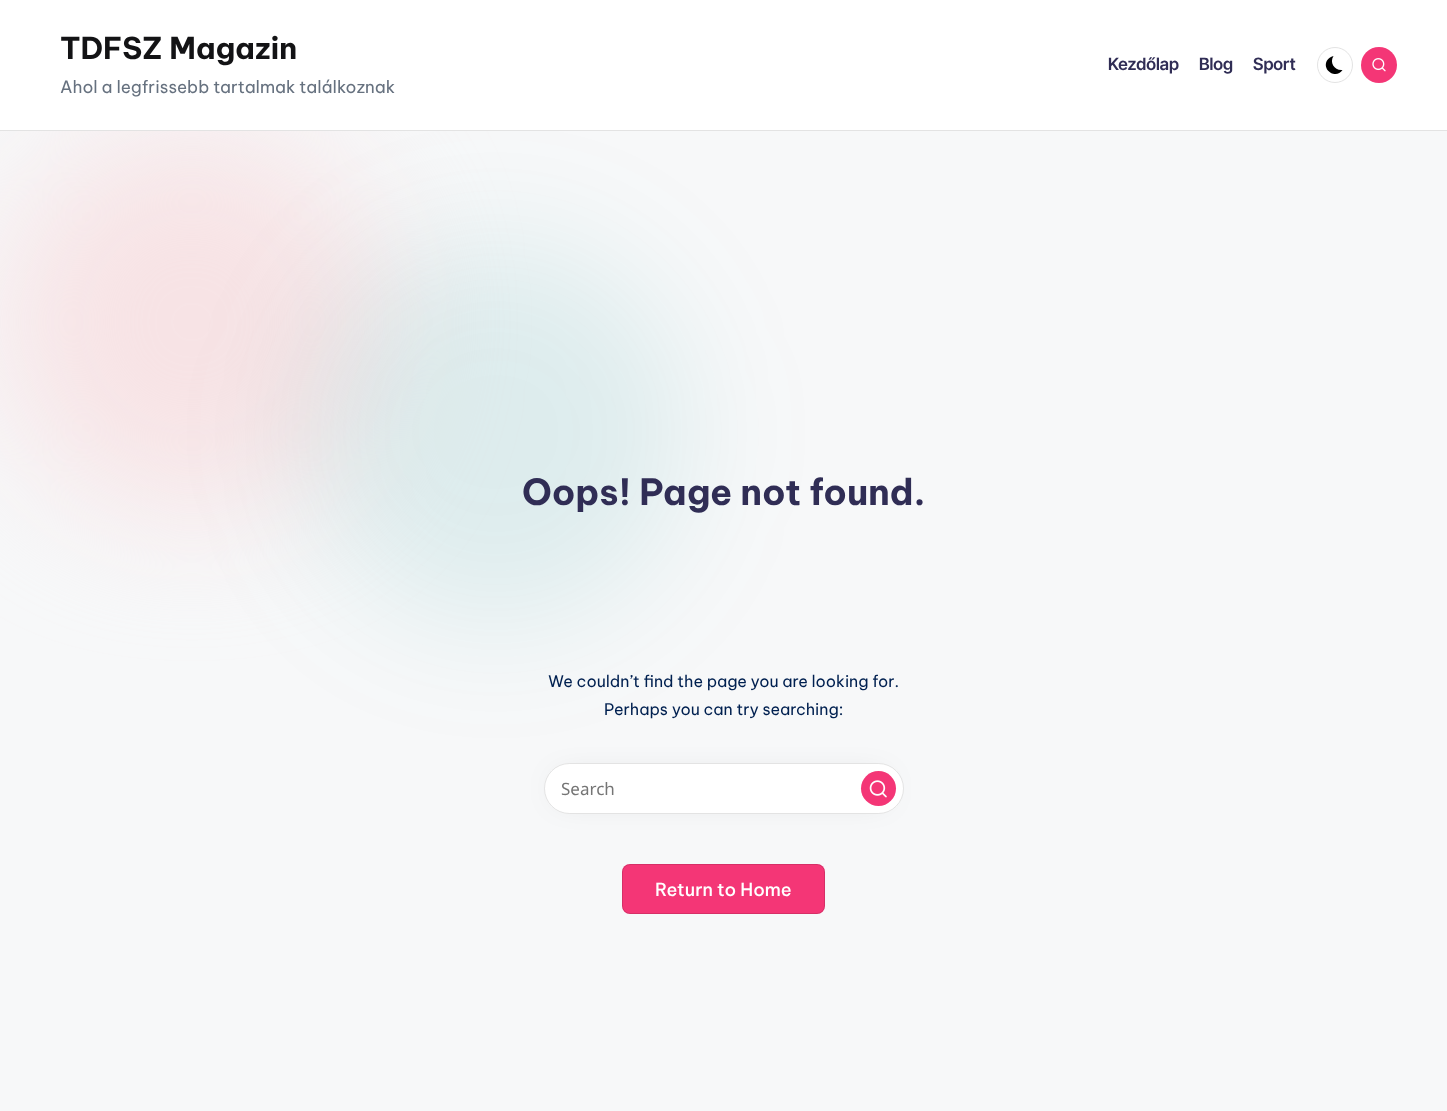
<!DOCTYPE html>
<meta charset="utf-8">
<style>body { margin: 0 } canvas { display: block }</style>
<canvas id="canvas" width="1447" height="1111"></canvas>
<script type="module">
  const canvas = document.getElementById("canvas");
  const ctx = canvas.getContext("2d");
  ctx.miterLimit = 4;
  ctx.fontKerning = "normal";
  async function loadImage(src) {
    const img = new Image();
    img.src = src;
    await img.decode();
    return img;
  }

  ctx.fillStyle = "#f7f8f9";
  ctx.fillRect(0, 0, 1447, 1111);
  ctx.fillStyle = "#f7e3e5";
  ctx.filter = "blur(64px)";
  ctx.beginPath();
  ctx.roundRect(0, 130, 384, 384, 192);
  ctx.fill();
  ctx.filter = "none";
  ctx.fillStyle = "rgba(4, 134, 139, 0.1)";
  ctx.filter = "blur(64px)";
  ctx.beginPath();
  ctx.roundRect(304, 240, 384, 384, 192);
  ctx.fill();
  ctx.filter = "none";
  ctx.fillStyle = "#ffffff";
  ctx.fillRect(0, 0, 1447, 130);
  ctx.fillStyle = "#e3e3e3";
  ctx.fillRect(0, 130, 1447, 1);
  ctx.font = "bold 30px Be Vietnam Pro";
  ctx.fillStyle = "#131315";
  ctx.fillText("TDFSZ Magazin", 60, 59);
  ctx.font = "17px Be Vietnam Pro";
  ctx.fillStyle = "#66717f";
  ctx.fillText("Ahol a legfrissebb tartalmak találkoznak", 60, 93);
  ctx.font = "600 17px Inter Tight";
  ctx.fillStyle = "#302d55";
  ctx.fillText("Kezdőlap", 1108, 70);
  ctx.fillText("Blog", 1199, 70);
  ctx.fillText("Sport", 1253, 70);
  ctx.beginPath();
  ctx.arc(1335, 65, 17.5, 0, Math.PI * 2);
  ctx.strokeStyle = "#e3e3e3";
  ctx.stroke();
  ctx.fillStyle = "#000000";
  ctx.beginPath();
  ctx.moveTo(1342.5, 70);
  ctx.bezierCurveTo(1335, 71, 1329, 63, 1333.5, 56);
  ctx.bezierCurveTo(1330.5, 56.5, 1328.5, 58.5, 1327, 60.5);
  ctx.bezierCurveTo(1321.5, 70.5, 1336.5, 79.5, 1342.5, 70);
  ctx.closePath();
  ctx.fill();
  ctx.fillStyle = "#f43676";
  ctx.beginPath();
  ctx.arc(1379, 65, 18, 0, Math.PI * 2);
  ctx.fill();
  ctx.drawImage(await loadImage("img1.png"), 1372, 58, 14, 14);
  ctx.font = "bold 36px Be Vietnam Pro";
  ctx.fillStyle = "#302d55";
  ctx.fillText("Oops! Page not found.", 522, 505);
  ctx.font = "16px Be Vietnam Pro";
  ctx.fillStyle = "#002050";
  ctx.fillText("We couldn’t find the page you are looking for.", 548, 687);
  ctx.fillText("Perhaps you can try searching:", 604, 715);
  ctx.fillStyle = "rgba(0, 0, 0, 0.15)";
  ctx.filter = "blur(16px)";
  ctx.beginPath();
  ctx.roundRect(557, 779, 328, 19, 9.5);
  ctx.fill();
  ctx.filter = "none";
  ctx.fillStyle = "#ffffff";
  ctx.beginPath();
  ctx.roundRect(544, 763, 360, 51, 25.5);
  ctx.fill();
  ctx.beginPath();
  ctx.roundRect(544.5, 763.5, 359, 50, 25);
  ctx.strokeStyle = "rgba(185, 185, 185, 0.4)";
  ctx.stroke();
  ctx.font = "17px Noto Sans";
  ctx.fillStyle = "#757575";
  ctx.fillText("Search", 561, 795);
  ctx.fillStyle = "#f43676";
  ctx.beginPath();
  ctx.arc(878.5, 788.5, 17.5, 0, Math.PI * 2);
  ctx.fill();
  ctx.drawImage(await loadImage("img2.png"), 869, 780, 18, 18);
  ctx.beginPath();
  ctx.roundRect(622, 864, 203, 50, 8);
  ctx.fill();
  ctx.beginPath();
  ctx.roundRect(622.5, 864.5, 202, 49, 7.5);
  ctx.strokeStyle = "rgba(0, 0, 0, 0.12)";
  ctx.stroke();
  ctx.font = "500 18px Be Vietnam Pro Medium";
  ctx.fillStyle = "#ffffff";
  ctx.fillText("Return to Home", 655, 896);
</script>
